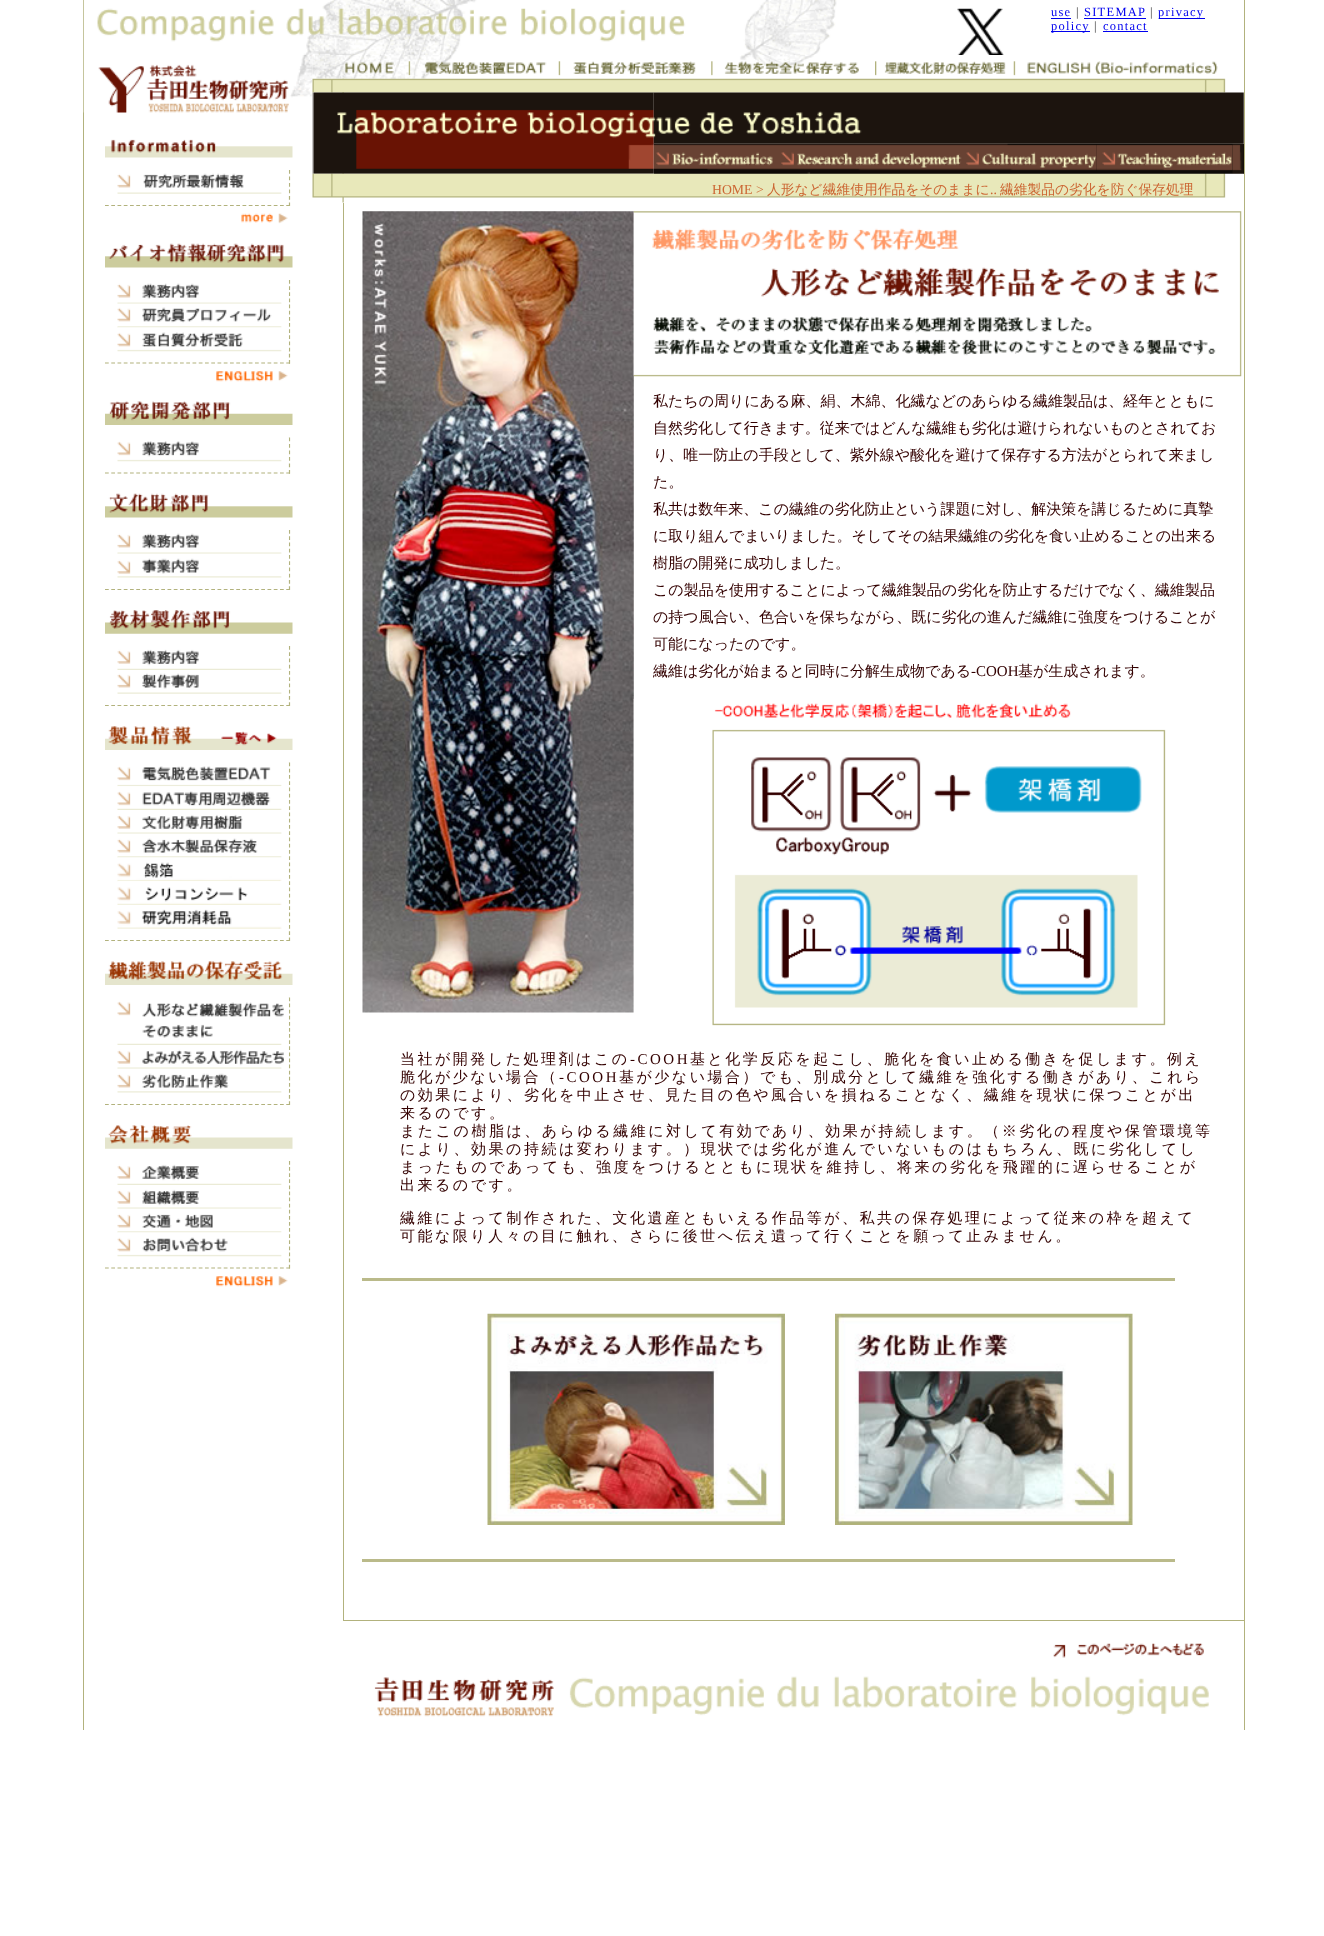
<!DOCTYPE html>
<meta charset="utf-8">
<style>body { margin: 0 } canvas { display: block }</style>
<canvas id="canvas" width="1324" height="1936"></canvas>
<script type="module">
  const canvas = document.getElementById("canvas");
  const ctx = canvas.getContext("2d");
  ctx.miterLimit = 4;
  ctx.fontKerning = "normal";
  async function loadImage(src) {
    const img = new Image();
    img.src = src;
    await img.decode();
    return img;
  }

  ctx.fillStyle = "#ffffff";
  ctx.fillRect(0, 0, 1324, 1936);
  ctx.fillStyle = "#b2b27d";
  ctx.fillRect(1244, 0, 1, 1730);
  ctx.fillRect(83, 0, 1, 1730);
  ctx.drawImage(await loadImage("img1.png"), 83, 0, 754, 55);
  ctx.drawImage(await loadImage("img2.png"), 957, 8, 47, 47);
  ctx.letterSpacing = "1.25px";
  ctx.font = "12.5px Liberation Serif";
  ctx.fillStyle = "#0000ee";
  ctx.fillText("use", 1051, 16);
  ctx.fillRect(1051, 18, 20, 1);
  ctx.fillStyle = "#333333";
  ctx.fillText("|", 1076, 16);
  ctx.fillStyle = "#0000ee";
  ctx.fillText("SITEMAP", 1084, 16);
  ctx.fillRect(1084, 18, 62, 1);
  ctx.fillStyle = "#333333";
  ctx.fillText("|", 1150, 16);
  ctx.fillStyle = "#0000ee";
  ctx.fillRect(1159, 18, 46, 1);
  ctx.fillText("privacy", 1158, 16);
  ctx.fillRect(1051, 31, 39, 1);
  ctx.fillText("policy", 1051, 30);
  ctx.fillStyle = "#333333";
  ctx.fillText("|", 1094, 30);
  ctx.fillStyle = "#0000ee";
  ctx.fillText("contact", 1103, 30);
  ctx.fillRect(1103, 31, 45, 1);
  ctx.drawImage(await loadImage("img3.png"), 83, 55, 230, 58);
  ctx.drawImage(await loadImage("img4.png"), 105, 139, 188, 19);
  ctx.beginPath();
  ctx.moveTo(289.5, 170);
  ctx.lineTo(289.5, 206);
  ctx.strokeStyle = "#b2b27d";
  ctx.lineWidth = 1.2;
  ctx.setLineDash([3.75, 2.75]);
  ctx.stroke();
  ctx.beginPath();
  ctx.moveTo(105, 205.5);
  ctx.lineTo(290, 205.5);
  ctx.setLineDash([3.75, 2.5]);
  ctx.stroke();
  ctx.drawImage(await loadImage("img5.png"), 117, 170, 172, 24);
  ctx.drawImage(await loadImage("img6.png"), 241, 213, 47, 11);
  ctx.drawImage(await loadImage("img7.png"), 105, 243, 188, 25);
  ctx.beginPath();
  ctx.moveTo(289.5, 280);
  ctx.lineTo(289.5, 364);
  ctx.setLineDash([3.75, 2.4]);
  ctx.stroke();
  ctx.beginPath();
  ctx.moveTo(105, 363);
  ctx.lineTo(290, 363);
  ctx.setLineDash([3.75, 2.5]);
  ctx.stroke();
  ctx.drawImage(await loadImage("img8.png"), 117, 280, 172, 24);
  ctx.drawImage(await loadImage("img9.png"), 117, 303, 172, 25);
  ctx.drawImage(await loadImage("img10.png"), 117, 327, 172, 25);
  ctx.drawImage(await loadImage("img11.png"), 216, 371, 72, 11);
  ctx.drawImage(await loadImage("img12.png"), 105, 401, 188, 24);
  ctx.beginPath();
  ctx.moveTo(289.5, 437.5);
  ctx.lineTo(289.5, 474);
  ctx.setLineDash([3.75, 2.75]);
  ctx.stroke();
  ctx.beginPath();
  ctx.moveTo(105, 473);
  ctx.lineTo(290, 473);
  ctx.setLineDash([3.75, 2.5]);
  ctx.stroke();
  ctx.drawImage(await loadImage("img13.png"), 117, 438, 172, 24);
  ctx.drawImage(await loadImage("img14.png"), 105, 493, 188, 25);
  ctx.beginPath();
  ctx.moveTo(289.5, 530);
  ctx.lineTo(289.5, 590);
  ctx.stroke();
  ctx.beginPath();
  ctx.moveTo(105, 589.5);
  ctx.lineTo(290, 589.5);
  ctx.stroke();
  ctx.drawImage(await loadImage("img15.png"), 117, 530, 172, 24);
  ctx.drawImage(await loadImage("img16.png"), 117, 553, 172, 25);
  ctx.drawImage(await loadImage("img17.png"), 105, 610, 188, 24);
  ctx.beginPath();
  ctx.moveTo(289.5, 646);
  ctx.lineTo(289.5, 706);
  ctx.stroke();
  ctx.beginPath();
  ctx.moveTo(105, 705.5);
  ctx.lineTo(290, 705.5);
  ctx.stroke();
  ctx.drawImage(await loadImage("img18.png"), 117, 646, 172, 24);
  ctx.drawImage(await loadImage("img19.png"), 117, 671, 172, 23);
  ctx.drawImage(await loadImage("img20.png"), 105, 726, 188, 24);
  ctx.beginPath();
  ctx.moveTo(289.5, 762.5);
  ctx.lineTo(289.5, 941);
  ctx.stroke();
  ctx.beginPath();
  ctx.moveTo(105, 940.5);
  ctx.lineTo(290, 940.5);
  ctx.stroke();
  ctx.drawImage(await loadImage("img21.png"), 117, 763, 172, 24);
  ctx.drawImage(await loadImage("img22.png"), 117, 786, 172, 24);
  ctx.drawImage(await loadImage("img23.png"), 117, 812, 172, 22);
  ctx.drawImage(await loadImage("img24.png"), 117, 833, 172, 25);
  ctx.drawImage(await loadImage("img25.png"), 117, 857, 172, 25);
  ctx.drawImage(await loadImage("img26.png"), 117, 881, 172, 24);
  ctx.drawImage(await loadImage("img27.png"), 117, 906, 172, 23);
  ctx.drawImage(await loadImage("img28.png"), 105, 961, 188, 24);
  ctx.beginPath();
  ctx.moveTo(289.5, 997.5);
  ctx.lineTo(289.5, 1105);
  ctx.setLineDash([3.75, 2.35]);
  ctx.stroke();
  ctx.beginPath();
  ctx.moveTo(105, 1104.5);
  ctx.lineTo(290, 1104.5);
  ctx.setLineDash([3.75, 2.5]);
  ctx.stroke();
  ctx.drawImage(await loadImage("img29.png"), 117, 998, 172, 47);
  ctx.drawImage(await loadImage("img30.png"), 117, 1046, 172, 23);
  ctx.drawImage(await loadImage("img31.png"), 117, 1068, 172, 25);
  ctx.drawImage(await loadImage("img32.png"), 105, 1125, 188, 24);
  ctx.beginPath();
  ctx.moveTo(289.5, 1161);
  ctx.lineTo(289.5, 1269);
  ctx.setLineDash([3.75, 2.35]);
  ctx.stroke();
  ctx.beginPath();
  ctx.moveTo(105, 1268);
  ctx.lineTo(290, 1268);
  ctx.setLineDash([3.75, 2.5]);
  ctx.stroke();
  ctx.drawImage(await loadImage("img33.png"), 117, 1161, 172, 24);
  ctx.drawImage(await loadImage("img34.png"), 117, 1185, 172, 24);
  ctx.drawImage(await loadImage("img35.png"), 117, 1208, 172, 25);
  ctx.drawImage(await loadImage("img36.png"), 117, 1232, 172, 25);
  ctx.drawImage(await loadImage("img11.png"), 216, 1276, 72, 11);
  ctx.drawImage(await loadImage("img37.png"), 312, 55, 97, 24);
  ctx.drawImage(await loadImage("img38.png"), 408, 55, 139, 24);
  ctx.drawImage(await loadImage("img39.png"), 558, 61, 138, 15);
  ctx.drawImage(await loadImage("img40.png"), 711, 55, 148, 21);
  ctx.drawImage(await loadImage("img41.png"), 875, 55, 131, 21);
  ctx.drawImage(await loadImage("img42.png"), 1013, 61, 205, 15);
  ctx.drawImage(await loadImage("img43.png"), 312, 78, 63, 125);
  ctx.drawImage(await loadImage("img44.png"), 312, 78, 914, 15);
  ctx.drawImage(await loadImage("img45.png"), 312, 92, 342, 82);
  ctx.drawImage(await loadImage("img46.png"), 653, 92, 591, 52);
  ctx.fillStyle = "#0e0a07";
  ctx.fillRect(654, 144, 590, 30);
  ctx.drawImage(await loadImage("img47.png"), 653, 143, 127, 31);
  ctx.drawImage(await loadImage("img48.png"), 780, 143, 185, 31);
  ctx.drawImage(await loadImage("img49.png"), 965, 143, 132, 28);
  ctx.drawImage(await loadImage("img50.png"), 1096, 143, 137, 28);
  ctx.drawImage(await loadImage("img51.png"), 1232, 143, 12, 31);
  ctx.drawImage(await loadImage("img52.png"), 312, 173, 932, 25);
  ctx.letterSpacing = "0px";
  ctx.font = "13.75px Liberation Serif";
  ctx.fillStyle = "#cc6633";
  ctx.fillText("HOME >", 712, 194);
  ctx.font = "500 13.75px WenQuanYi Zen Hei";
  ctx.fillText("人形など繊維使用作品をそのままに", 767, 194);
  ctx.font = "13.75px Liberation Serif";
  ctx.fillText("..", 990, 194);
  ctx.font = "500 13.75px WenQuanYi Zen Hei";
  ctx.fillText("繊維製品の劣化を防ぐ保存処理", 1000, 194);
  ctx.fillStyle = "#b2b27d";
  ctx.fillRect(343, 1620, 901, 1);
  ctx.fillRect(343, 203, 1, 1418);
  ctx.drawImage(await loadImage("img53.png"), 362, 211, 272, 802);
  ctx.drawImage(await loadImage("img54.png"), 633, 211, 609, 166);
  ctx.font = "500 15px WenQuanYi Zen Hei";
  ctx.fillStyle = "#330000";
  ctx.fillText("私たちの周りにある麻、絹、木綿、化繊などのあらゆる繊維製品は、経年とともに", 653, 406);
  ctx.fillText("自然劣化して行きます。従来ではどんな繊維も劣化は避けられないものとされてお", 653, 433);
  ctx.fillText("り、唯一防止の手段として、紫外線や酸化を避けて保存する方法がとられて来まし", 653, 460);
  ctx.fillText("た。", 653, 487);
  ctx.fillText("私共は数年来、この繊維の劣化防止という課題に対し、解決策を講じるために真摯", 653, 514);
  ctx.fillText("に取り組んでまいりました。そしてその結果繊維の劣化を食い止めることの出来る", 653, 541);
  ctx.fillText("樹脂の開発に成功しました。", 653, 568);
  ctx.fillText("この製品を使用することによって繊維製品の劣化を防止するだけでなく、繊維製品", 653, 595);
  ctx.fillText("の持つ風合い、色合いを保ちながら、既に劣化の進んだ繊維に強度をつけることが", 653, 622);
  ctx.fillText("可能になったのです。", 653, 649);
  ctx.fillText("繊維は劣化が始まると同時に分解生成物である", 653, 676);
  ctx.font = "15px Liberation Serif";
  ctx.fillText("-COOH", 971, 676);
  ctx.font = "500 15px WenQuanYi Zen Hei";
  ctx.fillText("基が生成されます。", 1018, 676);
  ctx.drawImage(await loadImage("img55.png"), 633, 698, 533, 328);
  ctx.letterSpacing = "2.5px";
  ctx.fillText("当社が開発した処理剤はこの", 400, 1064);
  ctx.font = "15px Liberation Serif";
  ctx.fillText("-COOH", 630, 1064);
  ctx.font = "500 15px WenQuanYi Zen Hei";
  ctx.fillText("基と化学反応を起こし、脆化を食い止める働きを促します。例え", 690, 1064);
  ctx.fillText("脆化が少ない場合（", 400, 1082);
  ctx.font = "15px Liberation Serif";
  ctx.fillText("-COOH", 559, 1082);
  ctx.font = "500 15px WenQuanYi Zen Hei";
  ctx.fillText("基が少ない場合）でも、別成分として繊維を強化する働きがあり、これら", 619, 1082);
  ctx.fillText("の効果により、劣化を中止させ、見た目の色や風合いを損ねることなく、繊維を現状に保つことが出", 400, 1100);
  ctx.fillText("来るのです。", 400, 1118);
  ctx.fillText("またこの樹脂は、あらゆる繊維に対して有効であり、効果が持続します。（※劣化の程度や保管環境等", 400, 1136);
  ctx.fillText("により、効果の持続は変わります。）現状では劣化が進んでいないものはもちろん、既に劣化してし", 400, 1154);
  ctx.fillText("まったものであっても、強度をつけるとともに現状を維持し、将来の劣化を飛躍的に遅らせることが", 400, 1172);
  ctx.fillText("出来るのです。", 400, 1190);
  ctx.fillText("繊維によって制作された、文化遺産ともいえる作品等が、私共の保存処理によって従来の枠を超えて", 400, 1223);
  ctx.fillText("可能な限り人々の目に触れ、さらに後世へ伝え遺って行くことを願って止みません。", 400, 1241);
  ctx.fillStyle = "#baba8a";
  ctx.fillRect(362, 1278, 813, 3);
  ctx.drawImage(await loadImage("img56.png"), 487, 1313, 298, 212);
  ctx.drawImage(await loadImage("img57.png"), 835, 1313, 298, 212);
  ctx.fillRect(362, 1559, 813, 3);
  ctx.drawImage(await loadImage("img58.png"), 1053, 1643, 151, 15);
  ctx.drawImage(await loadImage("img59.png"), 374, 1676, 835, 41);
</script>
